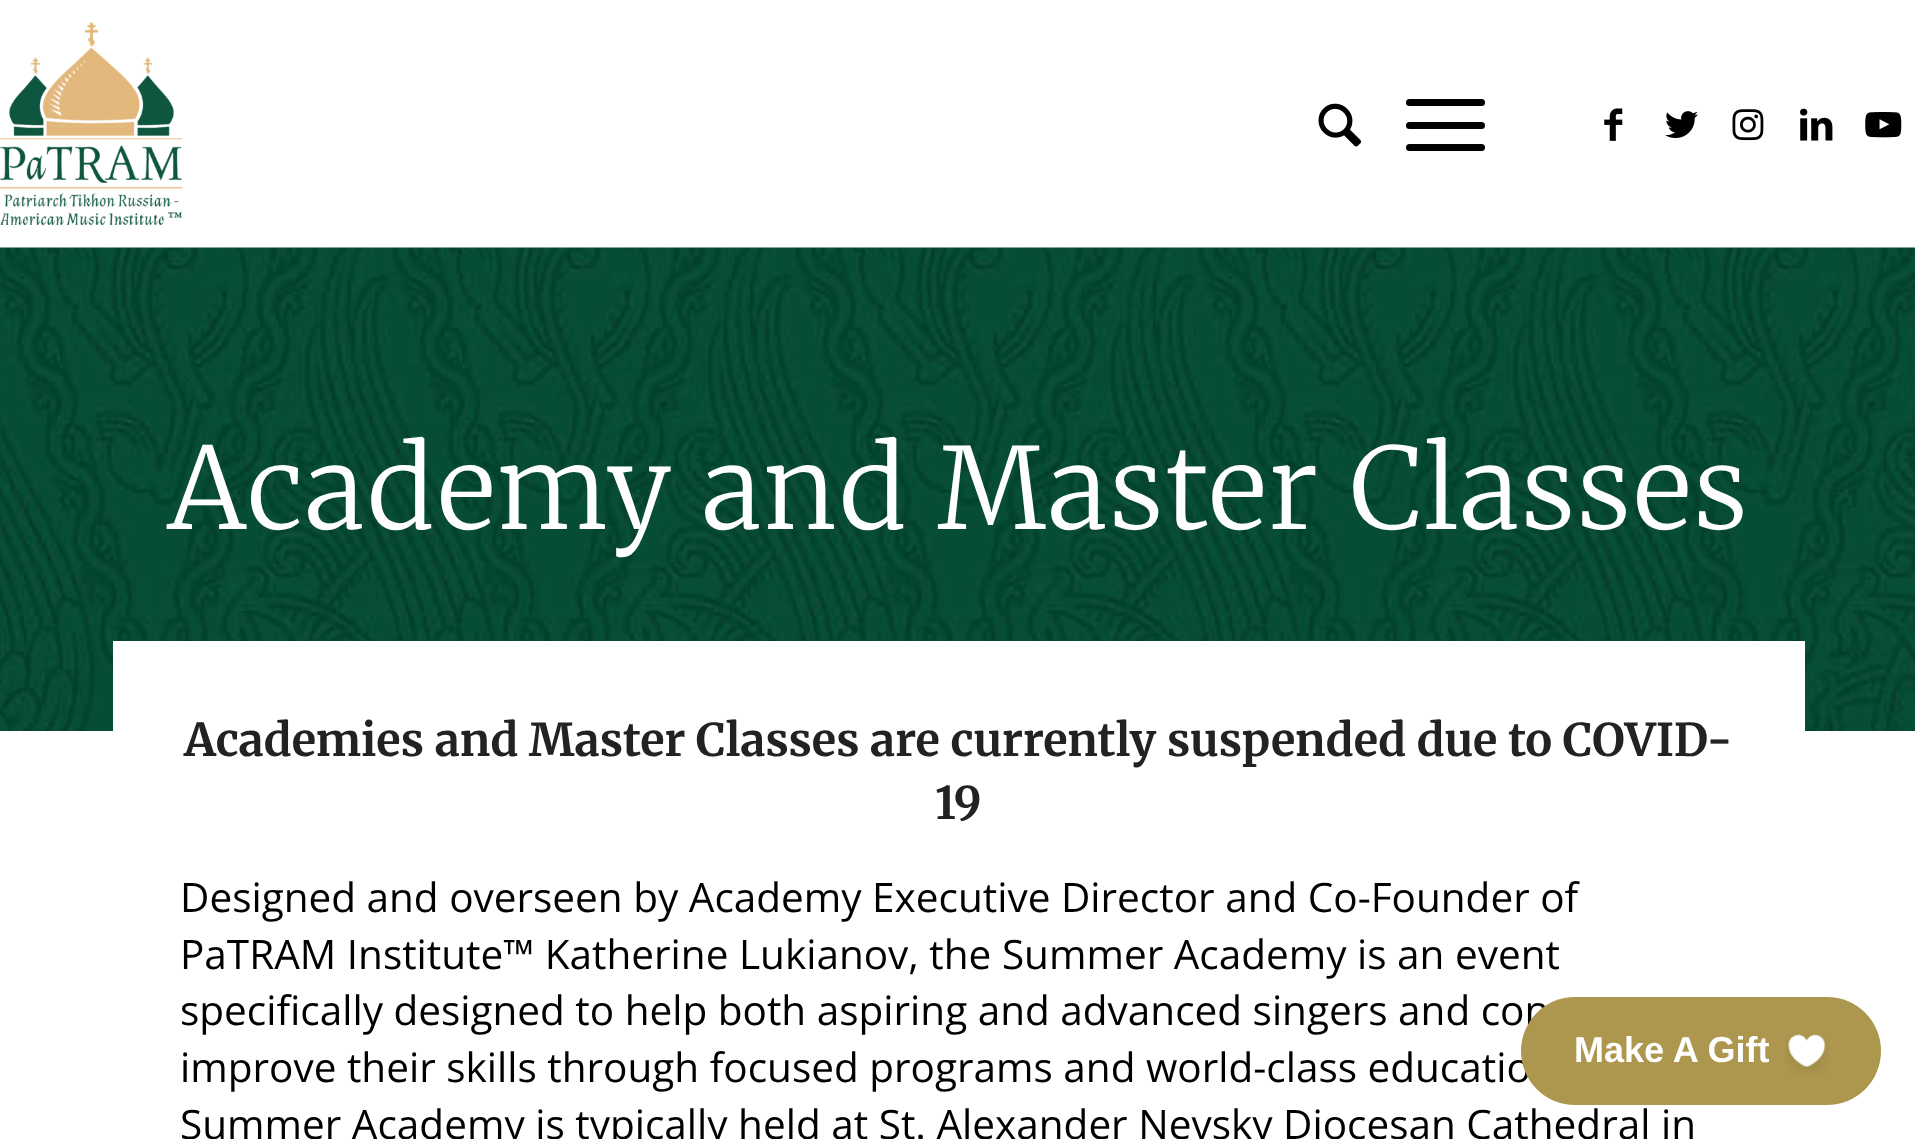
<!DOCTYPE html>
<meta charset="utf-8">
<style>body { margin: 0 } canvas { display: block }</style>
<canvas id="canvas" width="1915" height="1139"></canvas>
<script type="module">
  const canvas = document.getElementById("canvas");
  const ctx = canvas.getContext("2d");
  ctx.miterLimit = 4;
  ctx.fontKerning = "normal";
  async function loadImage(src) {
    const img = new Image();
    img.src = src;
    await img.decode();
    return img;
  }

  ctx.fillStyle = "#ffffff";
  ctx.fillRect(0, 0, 1915, 1139);
  ctx.drawImage(await loadImage("img1.png"), 0, 22, 183, 203);
  ctx.drawImage(await loadImage("img2.png"), 1318, 103, 44, 44);
  ctx.fillStyle = "#000000";
  ctx.beginPath();
  ctx.roundRect(1406, 122, 79, 7, 3.5);
  ctx.fill();
  ctx.beginPath();
  ctx.roundRect(1406, 99, 79, 7, 3.5);
  ctx.fill();
  ctx.beginPath();
  ctx.roundRect(1406, 144, 79, 7, 3.5);
  ctx.fill();
  ctx.drawImage(await loadImage("img3.png"), 1604, 108, 19, 33);
  ctx.drawImage(await loadImage("img4.png"), 1665, 111, 33, 27);
  ctx.drawImage(await loadImage("img5.png"), 1732, 109, 32, 32);
  ctx.drawImage(await loadImage("img6.png"), 1800, 108, 33, 33);
  ctx.drawImage(await loadImage("img7.png"), 1865, 112, 37, 26);
  ctx.drawImage(await loadImage("img8.png"), 0, 247, 1915, 484);
  ctx.letterSpacing = "2.25px";
  ctx.font = "300 112.5px Merriweather";
  ctx.fillStyle = "#ffffff";
  ctx.fillText("Academy and Master Classes", 167, 529);
  ctx.fillRect(113, 641, 1692, 90);
  ctx.letterSpacing = "0px";
  ctx.font = "bold 45px Merriweather";
  ctx.fillStyle = "#222222";
  ctx.fillText("Academies and Master Classes are currently suspended due to COVID-", 184, 756);
  ctx.fillText("19", 935, 819);
  ctx.font = "40.5px Open Sans";
  ctx.fillStyle = "#000000";
  ctx.fillText("Designed and overseen by Academy Executive Director and Co-Founder of", 180, 912);
  ctx.fillText("PaTRAM Institute™ Katherine Lukianov, the Summer Academy is an event", 180, 969);
  ctx.fillText("specifically designed to help both aspiring and advanced singers and con", 180, 1025);
  ctx.fillText("improve their skills through focused programs and world-class educatio", 180, 1082);
  ctx.fillText("Summer Academy is typically held at St. Alexander Nevsky Diocesan Cathedral in", 180, 1139);
  ctx.fillStyle = "#ad974f";
  ctx.beginPath();
  ctx.roundRect(1521, 997, 360, 108, 54);
  ctx.fill();
  ctx.font = "bold 36px Liberation Sans";
  ctx.fillStyle = "#ffffff";
  ctx.fillText("Make A Gift", 1574, 1062);
  ctx.drawImage(await loadImage("img9.png"), 1785, 1034, 44, 41);
</script>
